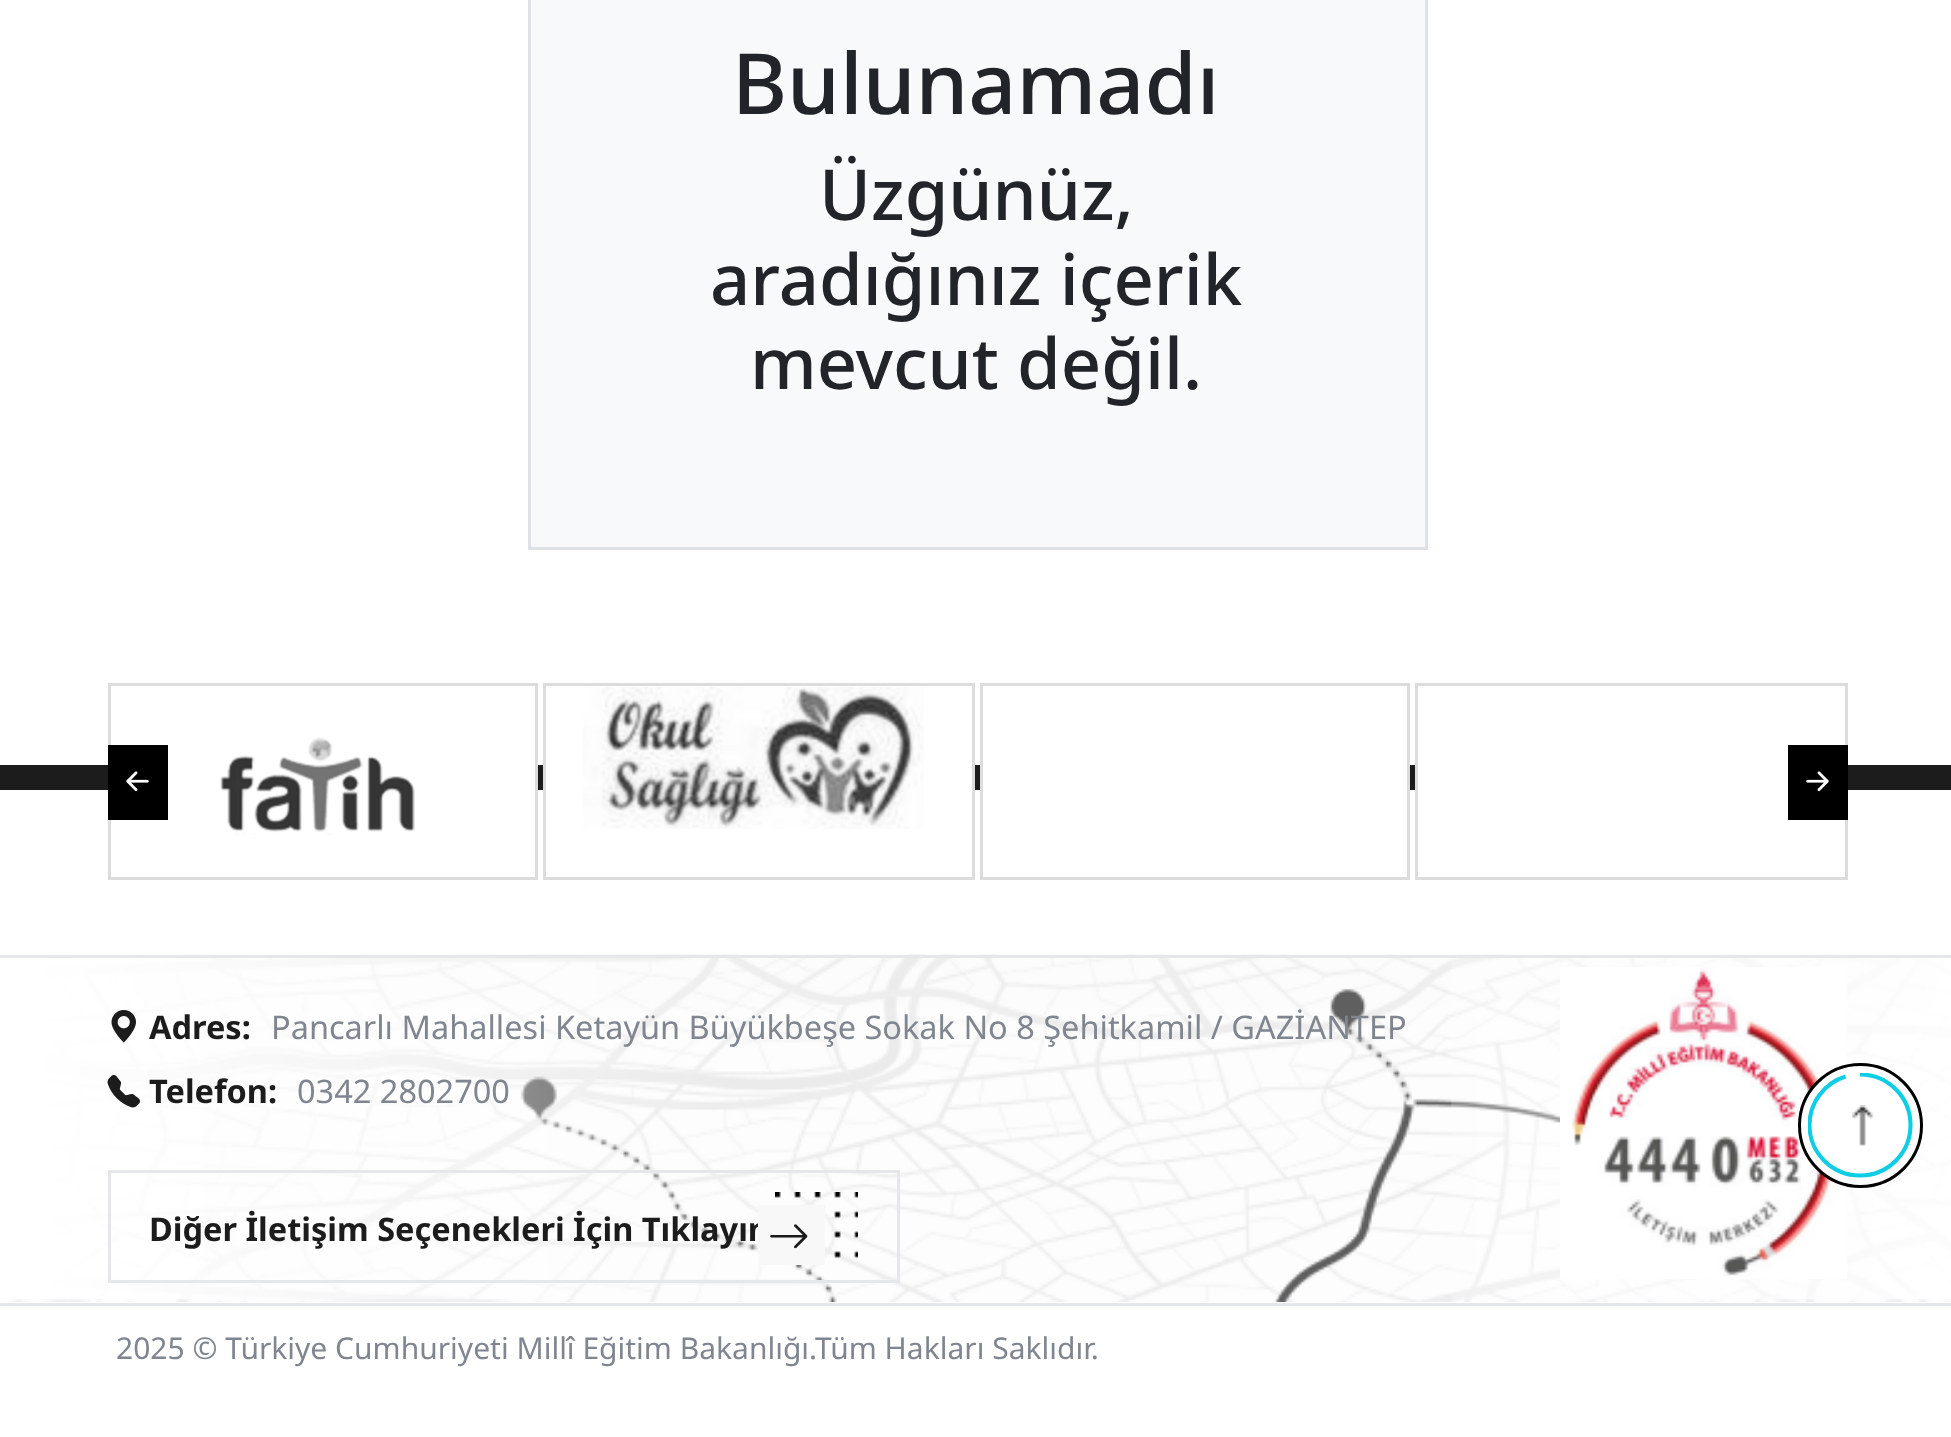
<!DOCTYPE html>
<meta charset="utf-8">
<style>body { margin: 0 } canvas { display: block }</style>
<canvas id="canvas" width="1951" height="1437"></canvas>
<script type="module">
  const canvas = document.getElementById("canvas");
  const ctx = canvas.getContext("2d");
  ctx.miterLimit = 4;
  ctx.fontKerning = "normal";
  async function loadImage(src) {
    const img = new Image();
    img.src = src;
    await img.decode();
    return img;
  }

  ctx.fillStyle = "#ffffff";
  ctx.fillRect(0, 0, 1951, 1437);
  ctx.fillStyle = "#f8f9fa";
  ctx.beginPath();
  ctx.rect(529.5, -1.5, 897, 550);
  ctx.fill();
  ctx.strokeStyle = "#dee2e6";
  ctx.lineWidth = 3;
  ctx.stroke();
  ctx.font = "500 84.25px Noto Sans";
  ctx.fillStyle = "#212529";
  ctx.fillText("Bulunamadı", 732, 114);
  ctx.font = "500 70.5px Noto Sans";
  ctx.fillText("Üzgünüz,", 819, 220);
  ctx.fillText("aradığınız içerik", 710, 305);
  ctx.fillText("mevcut değil.", 750, 389);
  ctx.fillStyle = "#1c1c1c";
  ctx.fillRect(0, 765, 1951, 25);
  ctx.fillStyle = "#ffffff";
  ctx.fillRect(111, 765, 424, 25);
  ctx.strokeStyle = "#dcdcdc";
  ctx.strokeRect(109.5, 684.5, 427, 194);
  ctx.drawImage(await loadImage("img1.png"), 220, 737, 195, 98);
  ctx.fillRect(546, 765, 426, 25);
  ctx.strokeRect(544.5, 684.5, 429, 194);
  ctx.drawImage(await loadImage("img2.png"), 583, 686, 341, 143);
  ctx.fillRect(983, 765, 424, 25);
  ctx.strokeRect(981.5, 684.5, 427, 194);
  ctx.fillRect(1418, 765, 427, 25);
  ctx.strokeRect(1416.5, 684.5, 430, 194);
  ctx.fillStyle = "#000000";
  ctx.fillRect(108, 745, 60, 75);
  ctx.drawImage(await loadImage("img3.png"), 126, 771, 23, 21);
  ctx.fillRect(1788, 745, 60, 75);
  ctx.drawImage(await loadImage("img4.png"), 1806, 771, 23, 21);
  ctx.drawImage(await loadImage("img5.png"), 11, 954, 1940, 348);
  ctx.fillStyle = "#e5e7eb";
  ctx.fillRect(0, 955, 1951, 3);
  ctx.fillRect(0, 1303, 1951, 3);
  ctx.drawImage(await loadImage("img6.png"), 111, 1010, 25, 33);
  ctx.font = "bold 32.5px Noto Sans";
  ctx.fillStyle = "#1c1c1c";
  ctx.fillText("Adres:", 149, 1039);
  ctx.font = "32.5px Noto Sans";
  ctx.fillStyle = "#7f8690";
  ctx.fillText("Pancarlı Mahallesi Ketayün Büyükbeşe Sokak No 8 Şehitkamil / GAZİANTEP", 271, 1039);
  ctx.drawImage(await loadImage("img7.png"), 107, 1075, 33, 33);
  ctx.font = "bold 32.5px Noto Sans";
  ctx.fillStyle = "#1c1c1c";
  ctx.fillText("Telefon:", 149, 1103);
  ctx.font = "32.5px Noto Sans";
  ctx.fillStyle = "#7f8690";
  ctx.fillText("0342 2802700", 297, 1103);
  ctx.strokeStyle = "#e5e7eb";
  ctx.strokeRect(109.5, 1171.5, 789, 110);
  ctx.font = "bold 32.5px Noto Sans";
  ctx.fillStyle = "#1c1c1c";
  ctx.fillText("Diğer İletişim Seçenekleri İçin Tıklayın", 149, 1241);
  ctx.drawImage(await loadImage("img8.png"), 775, 1192, 83, 66);
  ctx.fillStyle = "#f8f8f8";
  ctx.fillRect(758, 1205, 67, 60);
  ctx.drawImage(await loadImage("img9.png"), 770, 1224, 38, 25);
  ctx.drawImage(await loadImage("img10.png"), 1560, 967, 287, 312);
  ctx.fillStyle = "#ffffff";
  ctx.beginPath();
  ctx.arc(1860.5, 1125.5, 61, 0, Math.PI * 2);
  ctx.fill();
  ctx.strokeStyle = "#000000";
  ctx.stroke();
  ctx.save();
  ctx.beginPath();
  ctx.rect(1808, 1073, 105, 105);
  ctx.clip();
  ctx.beginPath();
  ctx.moveTo(1860, 1074.5);
  ctx.bezierCurveTo(1888, 1074.5, 1910.5, 1097, 1910.5, 1125);
  ctx.bezierCurveTo(1910.5, 1153, 1888, 1175.5, 1860, 1175.5);
  ctx.bezierCurveTo(1832, 1175.5, 1809.5, 1153, 1809.5, 1125);
  ctx.bezierCurveTo(1809.5, 1102.5, 1824.5, 1083, 1845.5, 1076.5);
  ctx.strokeStyle = "#10cde6";
  ctx.lineWidth = 4.1;
  ctx.stroke();
  ctx.restore();
  ctx.drawImage(await loadImage("img11.png"), 1852, 1105, 22, 41);
  ctx.font = "30px Noto Sans";
  ctx.fillStyle = "#7f8690";
  ctx.fillText("2025 © Türkiye Cumhuriyeti Millî Eğitim Bakanlığı.Tüm Hakları Saklıdır.", 116, 1359);
</script>
